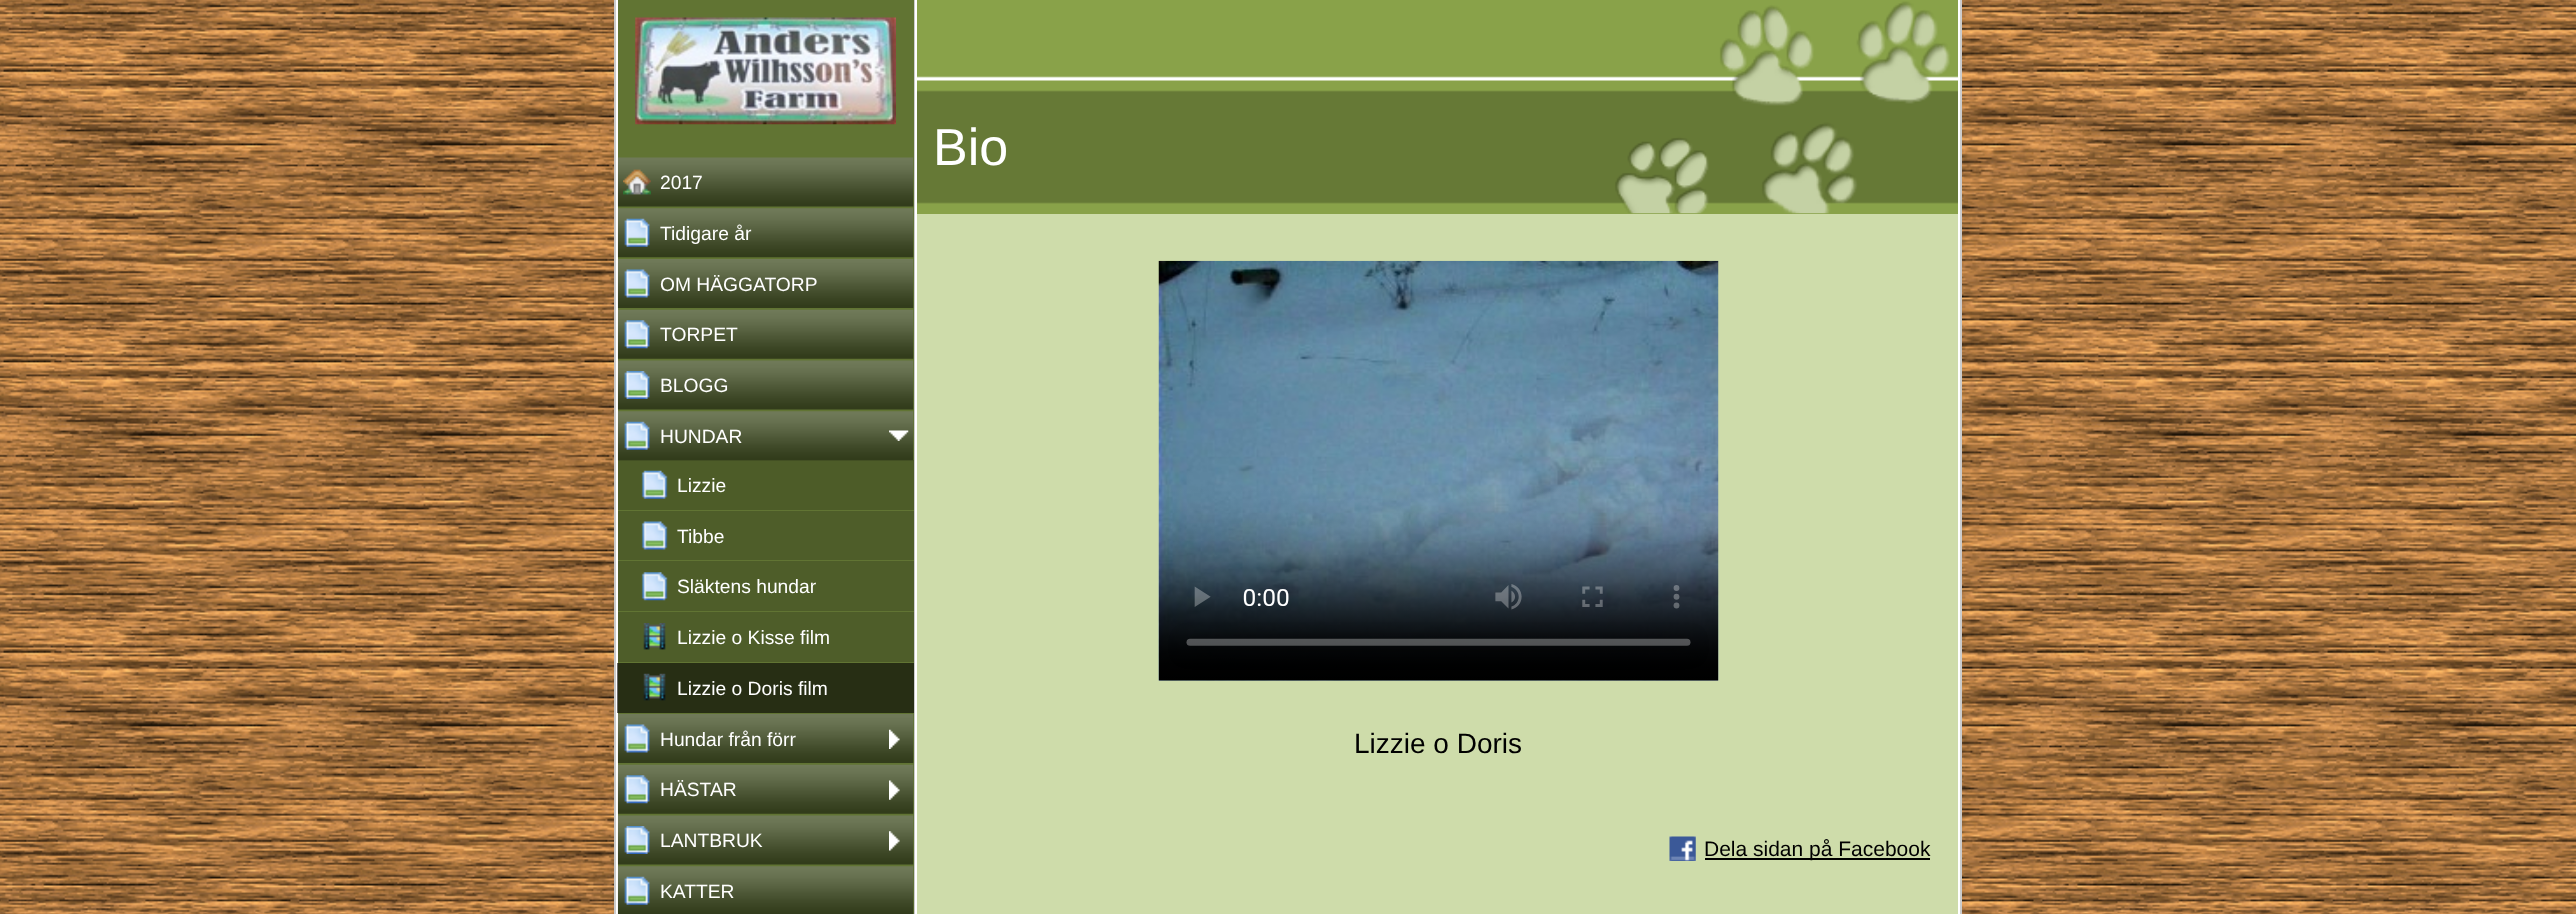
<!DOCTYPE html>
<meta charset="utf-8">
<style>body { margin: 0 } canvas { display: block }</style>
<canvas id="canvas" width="2576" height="914"></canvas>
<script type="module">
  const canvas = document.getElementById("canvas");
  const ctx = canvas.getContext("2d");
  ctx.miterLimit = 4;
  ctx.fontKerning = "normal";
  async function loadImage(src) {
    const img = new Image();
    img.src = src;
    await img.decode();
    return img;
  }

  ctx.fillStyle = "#ffffff";
  ctx.fillRect(0, 0, 2576, 914);
  ctx.drawImage(await loadImage("img1.png"), 0, 0, 2576, 914);
  ctx.fillRect(616, 0, 1344, 914);
  ctx.fillStyle = "#cccccc";
  ctx.fillRect(614, 0, 2, 914);
  ctx.fillStyle = "#617433";
  ctx.fillRect(618, 0, 296, 914);
  ctx.drawImage(await loadImage("img2.png"), 635, 17, 261, 108);
  ctx.drawImage(await loadImage("img3.png"), 617, 157, 297, 50);
  ctx.drawImage(await loadImage("img4.png"), 623, 169, 28, 26);
  ctx.font = "19.25px Liberation Sans";
  ctx.fillStyle = "#ffffff";
  ctx.fillText("2017", 660, 189);
  ctx.drawImage(await loadImage("img5.png"), 617, 208, 297, 50);
  ctx.drawImage(await loadImage("img6.png"), 624, 218, 26, 29);
  ctx.fillText("Tidigare år", 660, 240);
  ctx.drawImage(await loadImage("img7.png"), 617, 259, 297, 49);
  ctx.drawImage(await loadImage("img8.png"), 624, 269, 26, 29);
  ctx.fillText("OM HÄGGATORP", 660, 291);
  ctx.drawImage(await loadImage("img9.png"), 617, 309, 297, 50);
  ctx.drawImage(await loadImage("img10.png"), 624, 320, 26, 29);
  ctx.fillText("TORPET", 660, 341);
  ctx.drawImage(await loadImage("img3.png"), 617, 360, 297, 50);
  ctx.drawImage(await loadImage("img11.png"), 624, 371, 26, 28);
  ctx.fillText("BLOGG", 660, 392);
  ctx.drawImage(await loadImage("img5.png"), 617, 411, 297, 50);
  ctx.drawImage(await loadImage("img12.png"), 624, 421, 26, 29);
  ctx.drawImage(await loadImage("img13.png"), 889, 430, 20, 11);
  ctx.fillText("HUNDAR", 660, 443);
  ctx.fillStyle = "rgba(0, 0, 0, 0.2)";
  ctx.fillRect(618, 460, 296, 50);
  ctx.drawImage(await loadImage("img14.png"), 641, 470, 27, 29);
  ctx.fillStyle = "#ffffff";
  ctx.fillText("Lizzie", 677, 492);
  ctx.fillStyle = "#4e5d29";
  ctx.fillRect(618, 511, 296, 49);
  ctx.drawImage(await loadImage("img15.png"), 641, 521, 27, 29);
  ctx.fillStyle = "#ffffff";
  ctx.fillText("Tibbe", 677, 543);
  ctx.fillStyle = "#4e5d29";
  ctx.fillRect(618, 561, 296, 50);
  ctx.drawImage(await loadImage("img16.png"), 641, 572, 27, 29);
  ctx.fillStyle = "#ffffff";
  ctx.fillText("Släktens hundar", 677, 593);
  ctx.fillStyle = "#4e5d29";
  ctx.fillRect(618, 612, 296, 50);
  ctx.drawImage(await loadImage("img17.png"), 643, 623, 23, 27);
  ctx.fillStyle = "#ffffff";
  ctx.fillText("Lizzie o Kisse film", 677, 644);
  ctx.fillStyle = "rgba(0, 0, 0, 0.6)";
  ctx.fillRect(617, 663, 297, 50);
  ctx.drawImage(await loadImage("img18.png"), 643, 673, 23, 28);
  ctx.fillStyle = "#ffffff";
  ctx.fillText("Lizzie o Doris film", 677, 695);
  ctx.drawImage(await loadImage("img7.png"), 617, 714, 297, 49);
  ctx.drawImage(await loadImage("img8.png"), 624, 724, 26, 29);
  ctx.drawImage(await loadImage("img19.png"), 889, 729, 11, 20);
  ctx.fillText("Hundar från förr", 660, 746);
  ctx.drawImage(await loadImage("img9.png"), 617, 764, 297, 50);
  ctx.drawImage(await loadImage("img10.png"), 624, 775, 26, 29);
  ctx.drawImage(await loadImage("img20.png"), 889, 780, 11, 20);
  ctx.fillText("HÄSTAR", 660, 796);
  ctx.drawImage(await loadImage("img3.png"), 617, 815, 297, 50);
  ctx.drawImage(await loadImage("img11.png"), 624, 826, 26, 28);
  ctx.drawImage(await loadImage("img21.png"), 889, 831, 11, 20);
  ctx.fillText("LANTBRUK", 660, 847);
  ctx.drawImage(await loadImage("img22.png"), 617, 866, 297, 48);
  ctx.drawImage(await loadImage("img12.png"), 624, 876, 26, 29);
  ctx.fillText("KATTER", 660, 898);
  ctx.fillStyle = "#cccccc";
  ctx.fillRect(914, 0, 1, 914);
  ctx.fillStyle = "#cedcaa";
  ctx.fillRect(917, 214, 1041, 700);
  ctx.fillStyle = "#89a249";
  ctx.fillRect(917, 0, 1041, 214);
  ctx.drawImage(await loadImage("img23.png"), 917, 1, 1041, 213);
  ctx.font = "52px Liberation Sans";
  ctx.fillStyle = "#ffffff";
  ctx.fillText("Bio", 933, 165);
  ctx.drawImage(await loadImage("img24.png"), 1158, 260, 561, 421);
  ctx.font = "28px Liberation Sans";
  ctx.fillStyle = "#000000";
  ctx.fillText("Lizzie o Doris", 1354, 753);
  ctx.drawImage(await loadImage("img25.png"), 1669, 836, 27, 25);
  ctx.fillRect(1705, 858, 225, 2);
  ctx.font = "21px Liberation Sans";
  ctx.fillText("Dela sidan på Facebook", 1704, 856);
  ctx.fillStyle = "#cccccc";
  ctx.fillRect(1960, 0, 2, 914);
</script>
